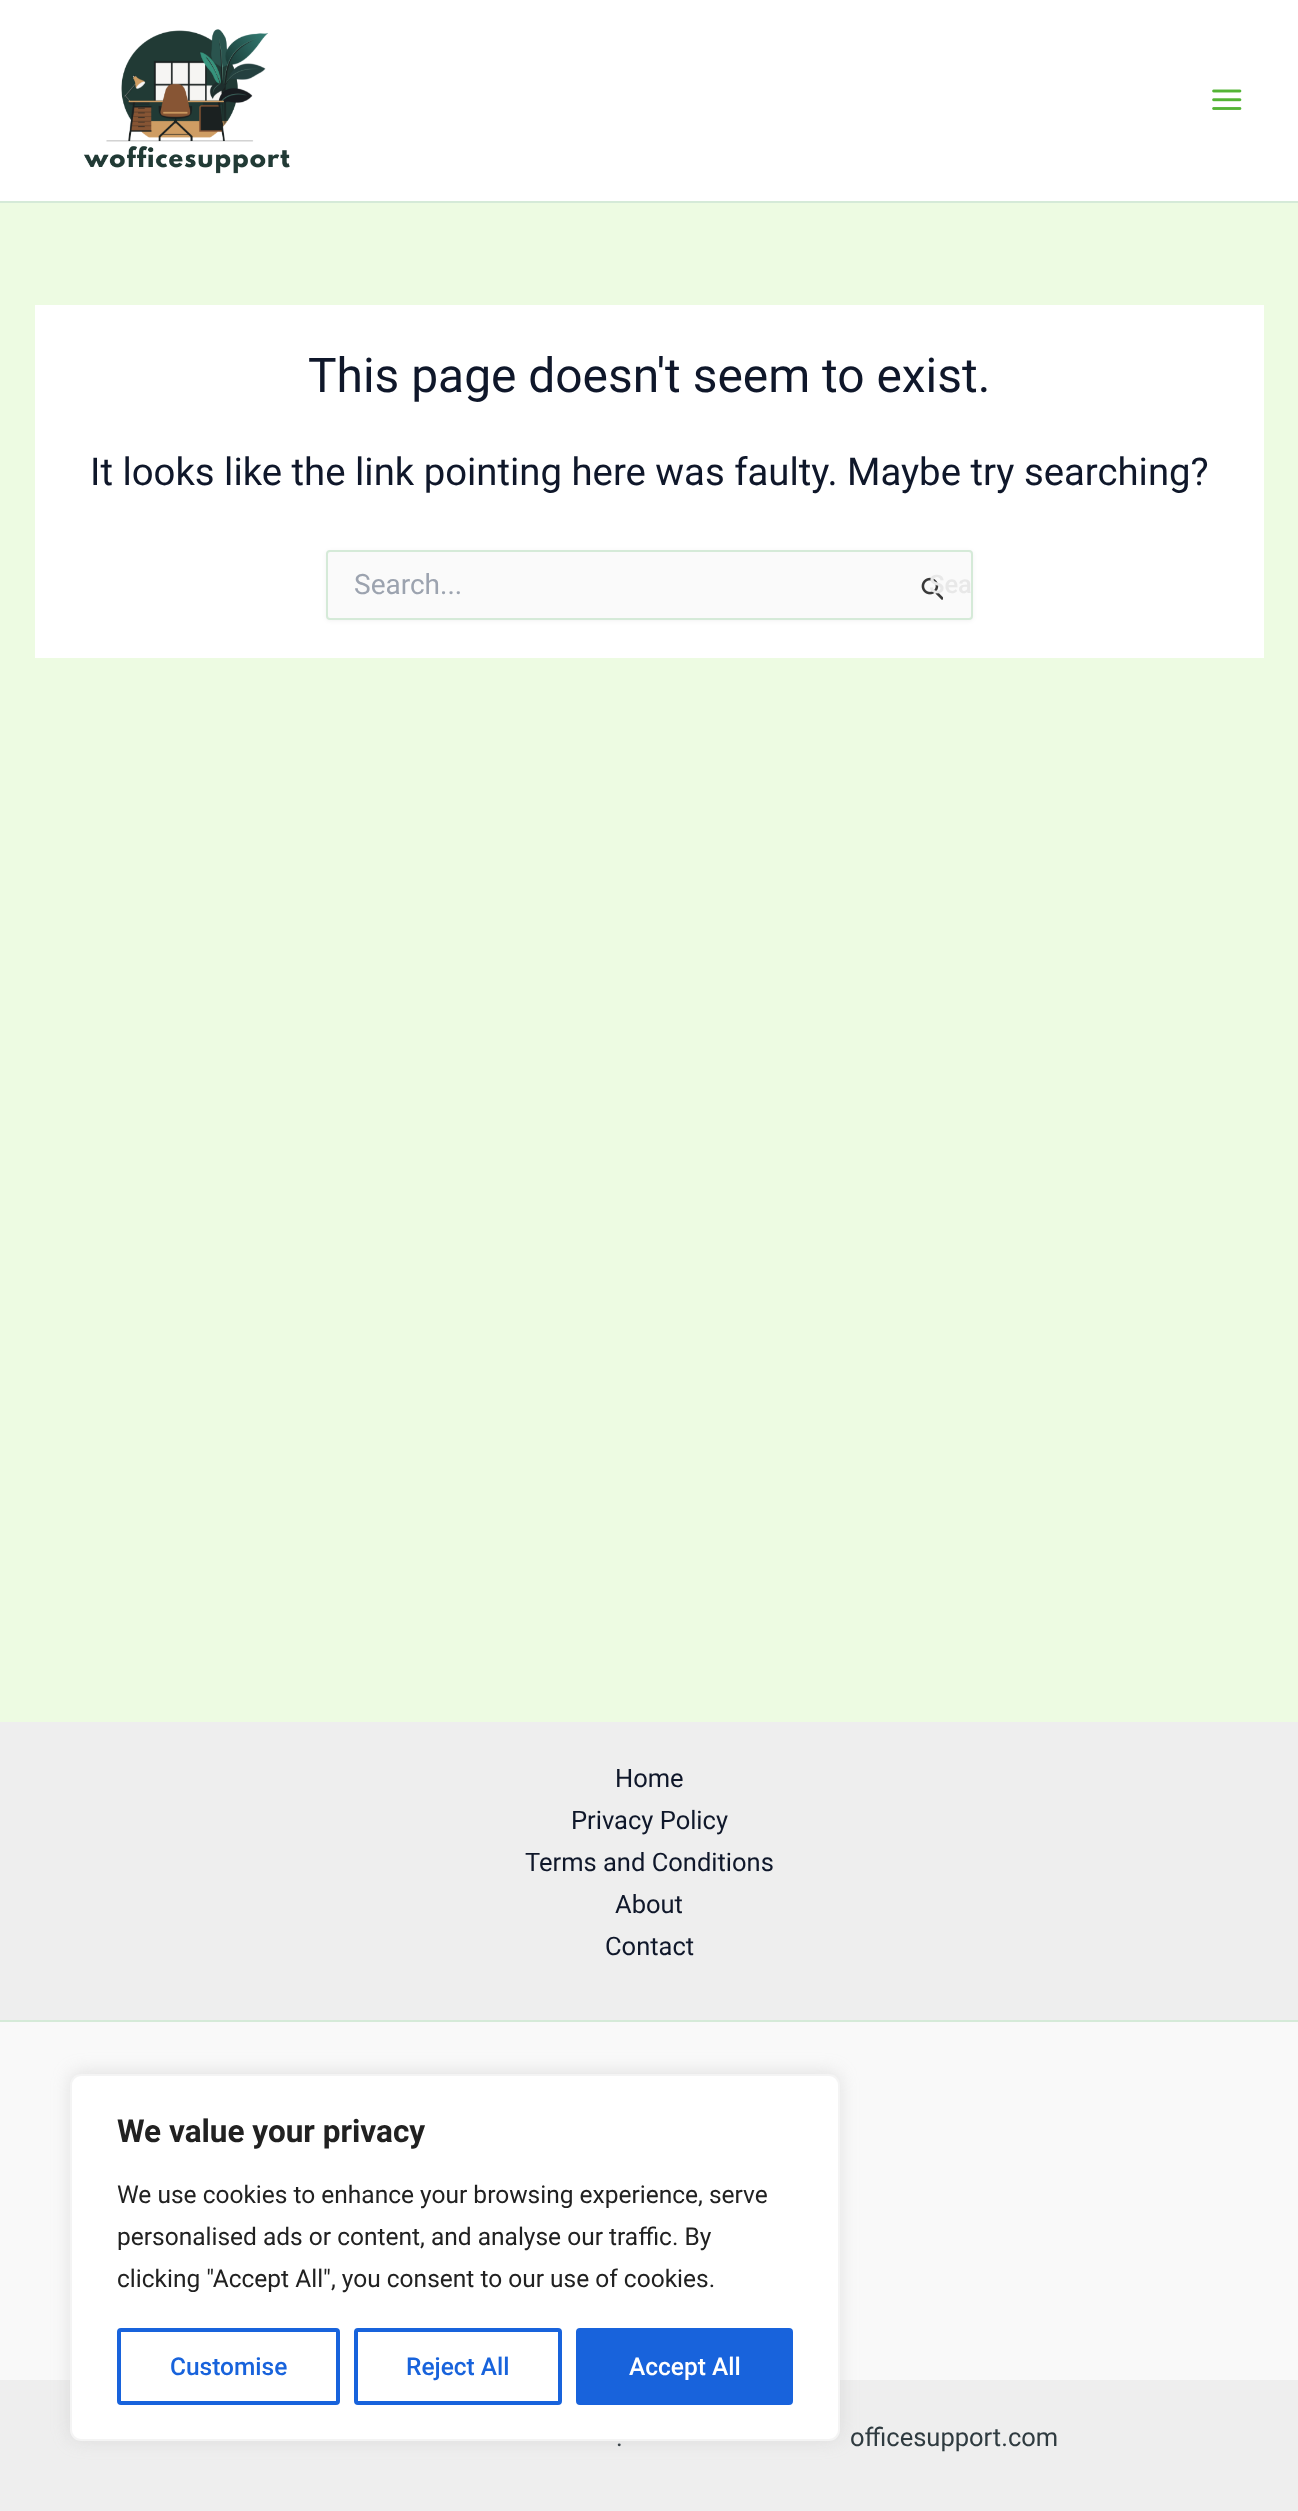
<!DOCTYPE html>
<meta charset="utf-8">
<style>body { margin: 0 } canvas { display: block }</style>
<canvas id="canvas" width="1298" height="2511"></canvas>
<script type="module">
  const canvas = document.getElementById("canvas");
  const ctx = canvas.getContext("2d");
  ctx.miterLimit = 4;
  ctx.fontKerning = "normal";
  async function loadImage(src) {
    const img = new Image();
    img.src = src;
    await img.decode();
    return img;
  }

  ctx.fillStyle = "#edfbe2";
  ctx.fillRect(0, 0, 1298, 2511);
  ctx.fillStyle = "#ffffff";
  ctx.fillRect(0, 0, 1298, 201);
  ctx.fillStyle = "#d5ead8";
  ctx.fillRect(0, 201, 1298, 2);
  ctx.drawImage(await loadImage("img1.png"), 83, 29, 207, 145);
  ctx.drawImage(await loadImage("img2.png"), 1212, 89, 30, 21);
  ctx.fillStyle = "#ffffff";
  ctx.fillRect(35, 305, 1229, 353);
  ctx.font = "47.9px Roboto";
  ctx.fillStyle = "#0f172a";
  ctx.fillText("This page doesn't seem to exist.", 308, 392);
  ctx.font = "38.3px Roboto";
  ctx.fillText("It looks like the link pointing here was faulty. Maybe try searching?", 90, 485);
  ctx.fillStyle = "rgba(0, 0, 0, 0.05)";
  ctx.filter = "blur(2px)";
  ctx.beginPath();
  ctx.roundRect(326, 551, 647, 70, 4);
  ctx.fill();
  ctx.filter = "none";
  ctx.fillStyle = "#fafafa";
  ctx.beginPath();
  ctx.roundRect(327, 551, 645, 68, 3);
  ctx.fill();
  ctx.strokeStyle = "#d5ead8";
  ctx.lineWidth = 2;
  ctx.stroke();
  ctx.font = "28px Roboto";
  ctx.fillStyle = "#9ca3af";
  ctx.fillText("Search...", 354, 594);
  ctx.drawImage(await loadImage("img3.png"), 921, 577, 22, 23);
  ctx.font = "500 25.5px Roboto";
  ctx.fillStyle = "#e8e8e8";
  ctx.fillText("Sea", 929, 593);
  ctx.fillStyle = "#eeeeee";
  ctx.fillRect(0, 1722, 1298, 298);
  ctx.font = "25.5px Roboto";
  ctx.fillStyle = "#0f172a";
  ctx.fillText("Home", 615, 1787);
  ctx.fillText("Privacy Policy", 571, 1829);
  ctx.fillText("Terms and Conditions", 525, 1871);
  ctx.fillText("About", 615, 1913);
  ctx.fillText("Contact", 605, 1955);
  ctx.fillStyle = "#f9f9f9";
  ctx.fillRect(0, 2022, 1298, 358);
  ctx.fillStyle = "#d5ead8";
  ctx.fillRect(0, 2020, 1298, 2);
  ctx.fillStyle = "#eeeeee";
  ctx.fillRect(0, 2380, 1298, 131);
  ctx.fillStyle = "#2f3b40";
  ctx.fillText(".", 616, 2446);
  ctx.fillText("officesupport.com", 850, 2446);
  ctx.fillStyle = "rgba(172, 171, 171, 0.3)";
  ctx.filter = "blur(9px)";
  ctx.beginPath();
  ctx.roundRect(70, 2072, 770, 368, 11);
  ctx.fill();
  ctx.filter = "none";
  ctx.fillStyle = "#ffffff";
  ctx.beginPath();
  ctx.roundRect(71, 2075, 768, 365, 10);
  ctx.fill();
  ctx.strokeStyle = "#f4f4f4";
  ctx.stroke();
  ctx.font = "bold 31.5px Roboto";
  ctx.fillStyle = "#212121";
  ctx.fillText("We value your privacy", 117, 2142);
  ctx.font = "24.5px Roboto";
  ctx.fillText("We use cookies to enhance your browsing experience, serve", 117, 2203);
  ctx.fillText("personalised ads or content, and analyse our traffic. By", 117, 2245);
  ctx.fillText("clicking \"Accept All\", you consent to our use of cookies.", 117, 2287);
  ctx.beginPath();
  ctx.roundRect(119, 2330, 219, 73, 2);
  ctx.strokeStyle = "#1863dc";
  ctx.lineWidth = 4;
  ctx.stroke();
  ctx.font = "500 24.5px Roboto";
  ctx.fillStyle = "#1863dc";
  ctx.fillText("Customise", 170, 2375);
  ctx.beginPath();
  ctx.roundRect(356, 2330, 204, 73, 2);
  ctx.stroke();
  ctx.fillText("Reject All", 406, 2375);
  ctx.beginPath();
  ctx.roundRect(578, 2330, 213, 73, 2);
  ctx.fill();
  ctx.stroke();
  ctx.fillStyle = "#ffffff";
  ctx.fillText("Accept All", 629, 2375);
</script>
